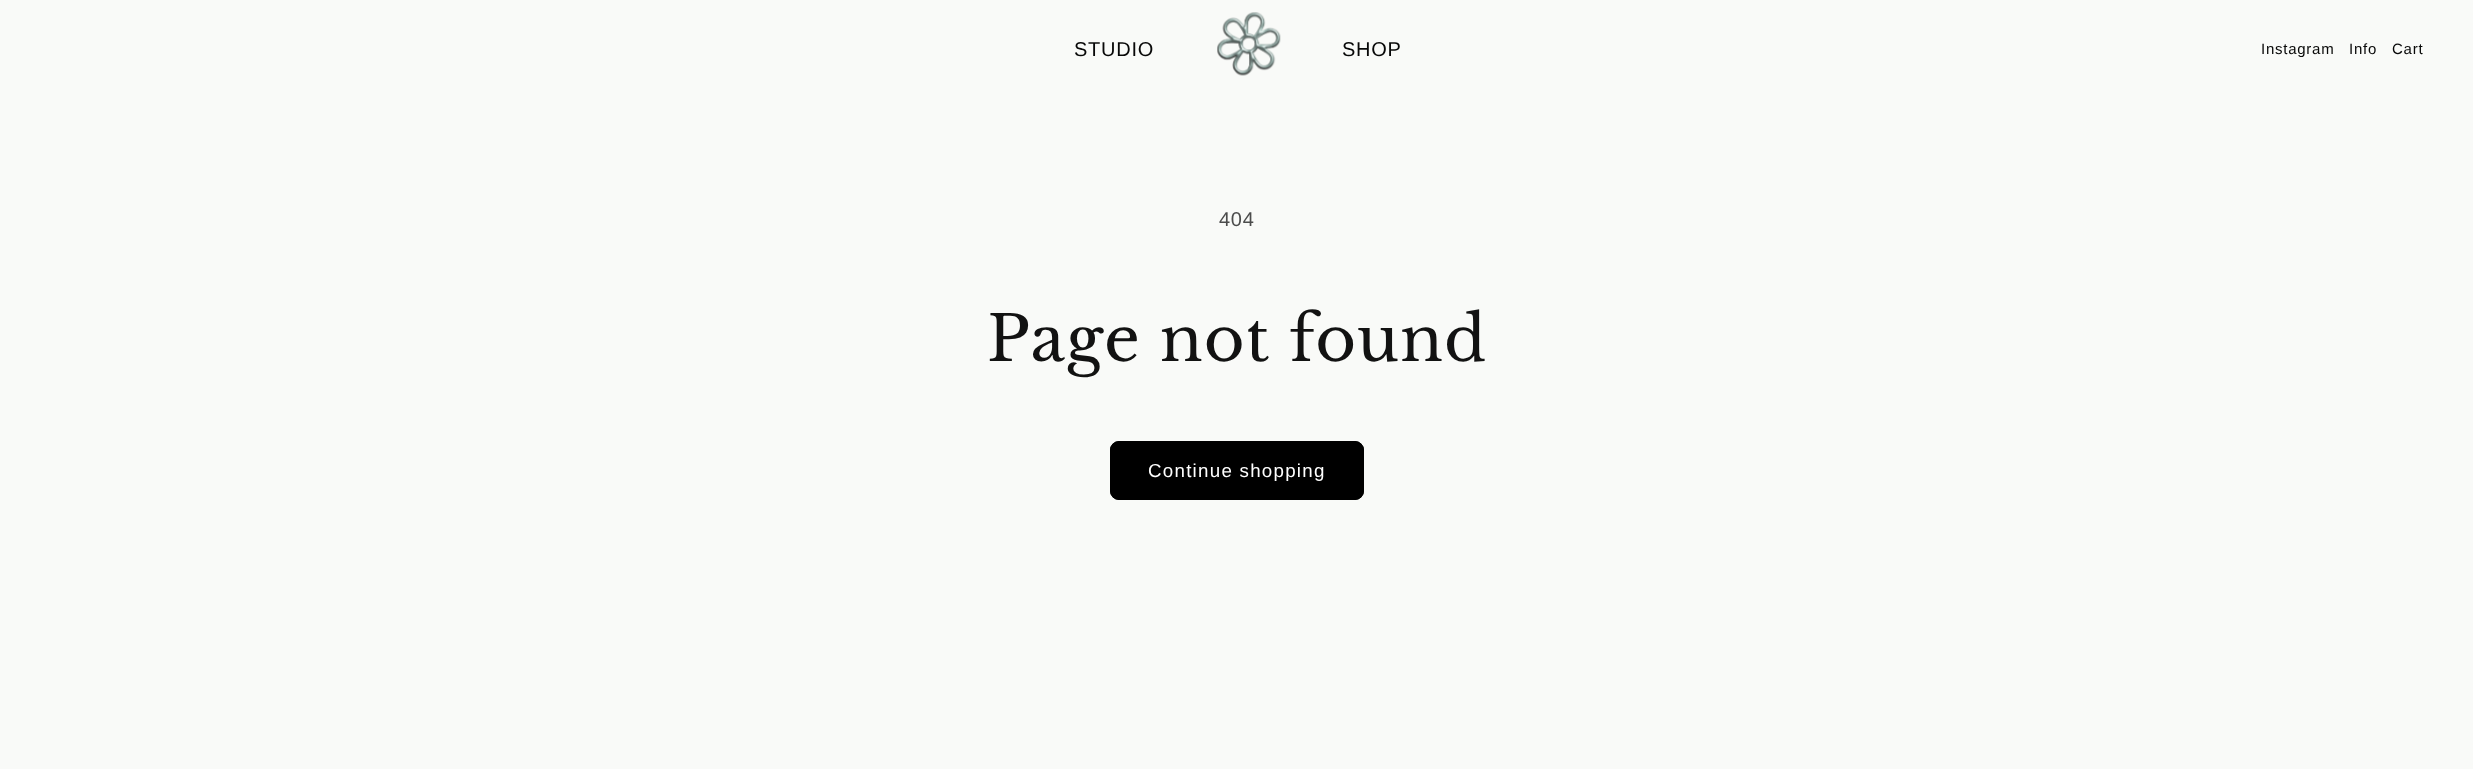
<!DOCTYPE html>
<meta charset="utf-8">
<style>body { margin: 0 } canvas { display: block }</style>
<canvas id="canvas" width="2473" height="769"></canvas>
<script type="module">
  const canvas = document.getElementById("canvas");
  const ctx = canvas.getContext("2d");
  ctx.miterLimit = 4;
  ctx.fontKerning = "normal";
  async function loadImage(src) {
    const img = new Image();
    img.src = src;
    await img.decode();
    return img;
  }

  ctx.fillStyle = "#f9faf8";
  ctx.fillRect(0, 0, 2473, 769);
  ctx.letterSpacing = "0.75px";
  ctx.font = "20px Liberation Sans";
  ctx.fillStyle = "#080808";
  ctx.fillText("STUDIO", 1074, 56);
  ctx.drawImage(await loadImage("img1.png"), 1217, 12, 64, 64);
  ctx.fillText("SHOP", 1342, 56);
  ctx.font = "15px Liberation Sans";
  ctx.fillText("Instagram", 2261, 54);
  ctx.fillText("Info", 2349, 54);
  ctx.fillText("Cart", 2392, 54);
  ctx.font = "20px Liberation Sans";
  ctx.fillStyle = "#4c4c4c";
  ctx.fillText("404", 1219, 226);
  ctx.letterSpacing = "1px";
  ctx.font = "62.5px Libre Baskerville";
  ctx.fillStyle = "#121212";
  ctx.fillText("Page not found", 987, 361);
  ctx.fillStyle = "#000000";
  ctx.beginPath();
  ctx.roundRect(1110, 441, 254, 59, 9);
  ctx.fill();
  ctx.beginPath();
  ctx.roundRect(1110.5, 441.5, 253, 58, 8.5);
  ctx.strokeStyle = "#000000";
  ctx.stroke();
  ctx.letterSpacing = "1.25px";
  ctx.font = "18.75px Liberation Sans";
  ctx.fillStyle = "#ffffff";
  ctx.fillText("Continue shopping", 1148, 477);
</script>
